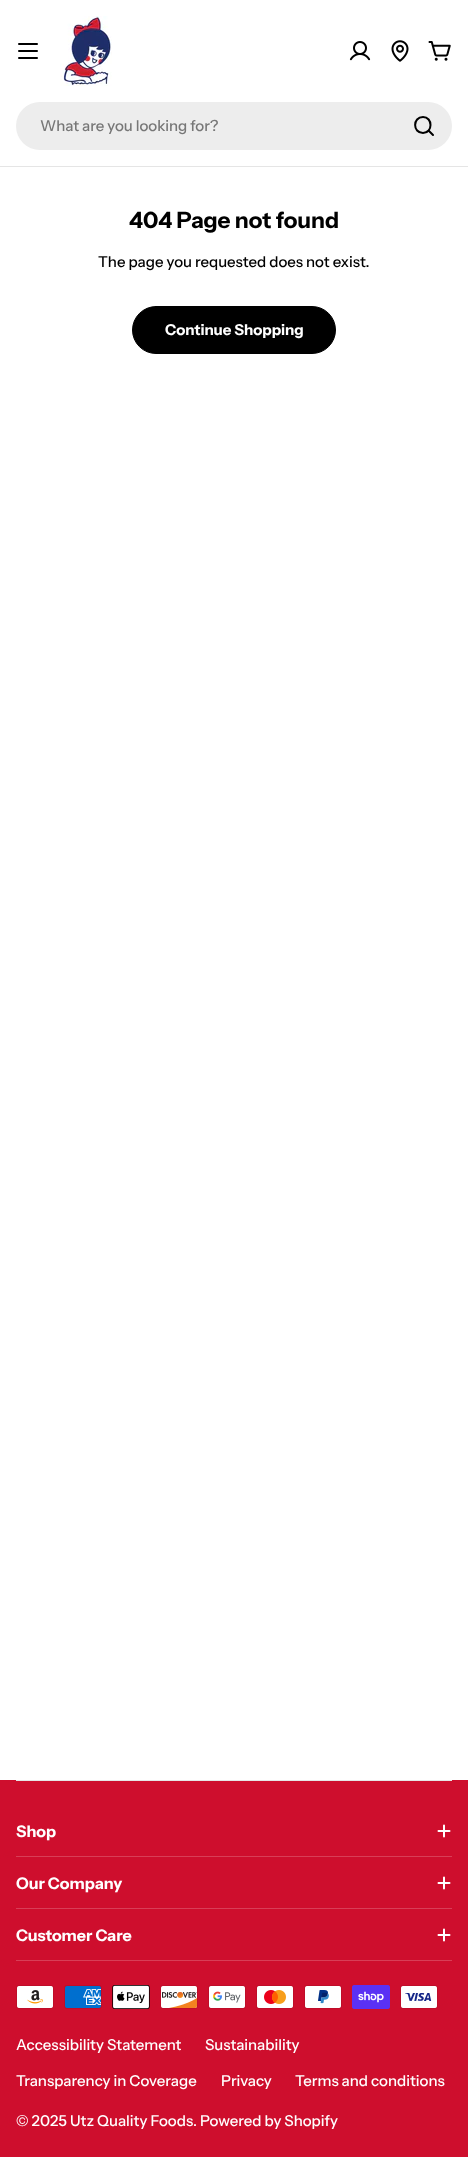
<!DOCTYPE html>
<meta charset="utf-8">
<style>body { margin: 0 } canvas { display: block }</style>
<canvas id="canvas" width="468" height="2157"></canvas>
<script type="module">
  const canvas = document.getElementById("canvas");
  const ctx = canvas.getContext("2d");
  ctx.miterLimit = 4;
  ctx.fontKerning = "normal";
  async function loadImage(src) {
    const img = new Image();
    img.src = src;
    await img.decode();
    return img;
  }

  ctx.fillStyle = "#ffffff";
  ctx.fillRect(0, 0, 468, 2157);
  ctx.fillStyle = "#000000";
  ctx.beginPath();
  ctx.roundRect(18, 50, 20, 2, 1);
  ctx.fill();
  ctx.beginPath();
  ctx.roundRect(18, 43, 20, 2, 1);
  ctx.fill();
  ctx.beginPath();
  ctx.roundRect(18, 57, 20, 2, 1);
  ctx.fill();
  ctx.drawImage(await loadImage("img1.png"), 60, 16, 52, 70);
  ctx.drawImage(await loadImage("img2.png"), 349, 41, 22, 20);
  ctx.drawImage(await loadImage("img3.png"), 391, 40, 18, 22);
  ctx.drawImage(await loadImage("img4.png"), 428, 41, 23, 20);
  ctx.fillStyle = "#ededed";
  ctx.beginPath();
  ctx.roundRect(16, 102, 436, 48, 24);
  ctx.fill();
  ctx.font = "500 15px Instrument Sans";
  ctx.fillStyle = "#777777";
  ctx.fillText("What are you looking for?", 40, 131);
  ctx.beginPath();
  ctx.moveTo(423, 133);
  ctx.bezierCurveTo(433, 133, 433, 117, 423, 117);
  ctx.bezierCurveTo(412.5, 117, 412.5, 133, 423, 133);
  ctx.closePath();
  ctx.moveTo(428.5, 130.5);
  ctx.lineTo(433, 135);
  ctx.strokeStyle = "#000000";
  ctx.lineWidth = 2;
  ctx.lineCap = "round";
  ctx.lineJoin = "round";
  ctx.stroke();
  ctx.fillStyle = "#e5e5e5";
  ctx.fillRect(0, 166, 468, 1);
  ctx.font = "bold 22.5px Instrument Sans";
  ctx.fillStyle = "#000000";
  ctx.fillText("404 Page not found", 129, 228);
  ctx.font = "500 15px Instrument Sans";
  ctx.fillText("The page you requested does not exist.", 98, 267);
  ctx.beginPath();
  ctx.roundRect(132.5, 306.5, 203, 47, 23.5);
  ctx.fill();
  ctx.lineWidth = 1;
  ctx.lineJoin = "miter";
  ctx.stroke();
  ctx.font = "bold 15px Instrument Sans";
  ctx.fillStyle = "#ffffff";
  ctx.fillText("Continue Shopping", 165, 335);
  ctx.fillStyle = "#ce0e2d";
  ctx.fillRect(0, 1780, 468, 377);
  ctx.fillStyle = "#e6e6e6";
  ctx.fillRect(16, 1780, 436, 1);
  ctx.fillStyle = "#d83e57";
  ctx.fillRect(16, 1856, 436, 1);
  ctx.font = "bold 16px Instrument Sans";
  ctx.fillStyle = "#ffffff";
  ctx.fillText("Shop", 16, 1837);
  ctx.beginPath();
  ctx.moveTo(438.5, 1831);
  ctx.lineTo(449.5, 1831);
  ctx.moveTo(444, 1825.5);
  ctx.lineTo(444, 1836.5);
  ctx.strokeStyle = "#ffffff";
  ctx.lineWidth = 2;
  ctx.lineJoin = "round";
  ctx.stroke();
  ctx.fillStyle = "#d83e57";
  ctx.fillRect(16, 1908, 436, 1);
  ctx.fillStyle = "#ffffff";
  ctx.fillText("Our Company", 16, 1889);
  ctx.beginPath();
  ctx.moveTo(438.5, 1883);
  ctx.lineTo(449.5, 1883);
  ctx.moveTo(444, 1877.5);
  ctx.lineTo(444, 1888.5);
  ctx.stroke();
  ctx.fillStyle = "#d83e57";
  ctx.fillRect(16, 1960, 436, 1);
  ctx.fillStyle = "#ffffff";
  ctx.fillText("Customer Care", 16, 1941);
  ctx.beginPath();
  ctx.moveTo(438.5, 1935);
  ctx.lineTo(449.5, 1935);
  ctx.moveTo(444, 1929.5);
  ctx.lineTo(444, 1940.5);
  ctx.stroke();
  ctx.drawImage(await loadImage("img5.png"), 16, 1985, 38, 24);
  ctx.drawImage(await loadImage("img6.png"), 64, 1985, 38, 24);
  ctx.drawImage(await loadImage("img7.png"), 112, 1985, 38, 24);
  ctx.drawImage(await loadImage("img8.png"), 160, 1985, 38, 24);
  ctx.drawImage(await loadImage("img9.png"), 208, 1985, 38, 24);
  ctx.drawImage(await loadImage("img10.png"), 256, 1985, 38, 24);
  ctx.drawImage(await loadImage("img11.png"), 304, 1985, 38, 24);
  ctx.drawImage(await loadImage("img12.png"), 352, 1985, 38, 24);
  ctx.drawImage(await loadImage("img13.png"), 400, 1985, 38, 24);
  ctx.font = "500 15px Instrument Sans";
  ctx.fillText("Accessibility Statement", 16, 2050);
  ctx.fillText("Sustainability", 205, 2050);
  ctx.fillText("Transparency in Coverage", 16, 2086);
  ctx.fillText("Privacy", 221, 2086);
  ctx.fillText("Terms and conditions", 295, 2086);
  ctx.fillText("© 2025", 16, 2126);
  ctx.fillText("Utz Quality Foods", 70, 2126);
  ctx.fillText(". Powered by Shopify", 193, 2126);
</script>
